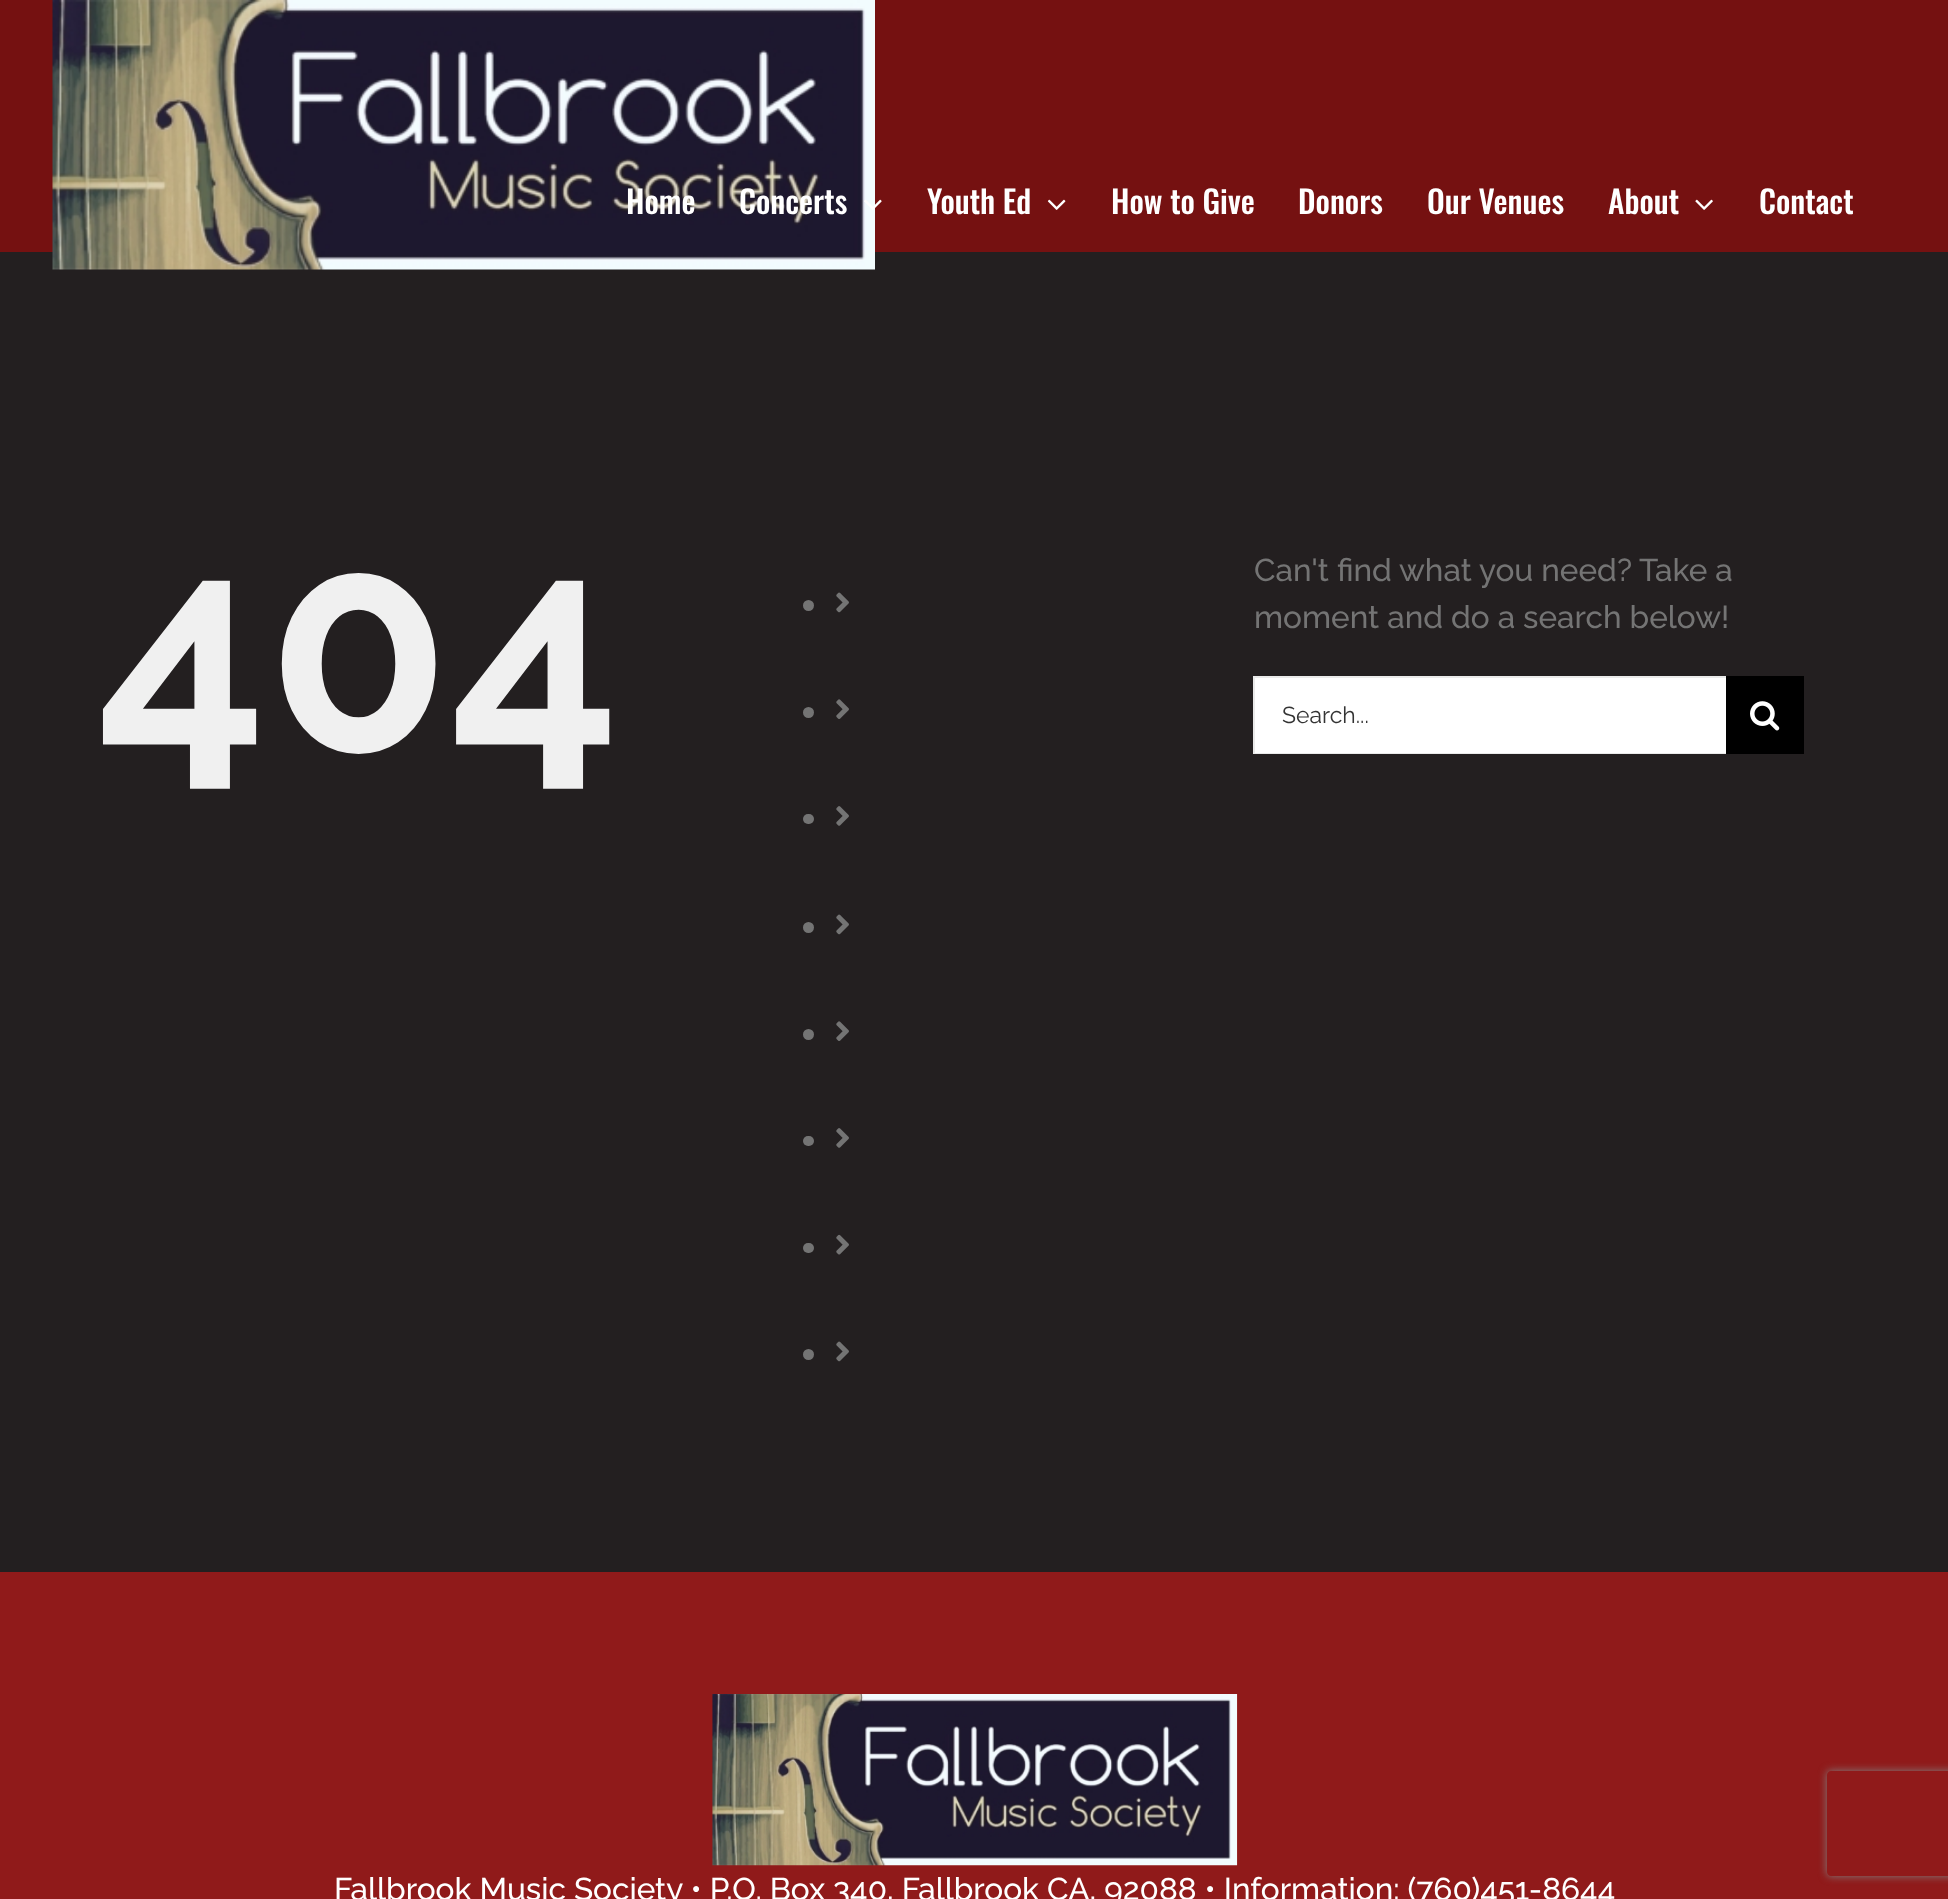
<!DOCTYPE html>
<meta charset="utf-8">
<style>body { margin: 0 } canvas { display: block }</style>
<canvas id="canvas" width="1948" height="1899"></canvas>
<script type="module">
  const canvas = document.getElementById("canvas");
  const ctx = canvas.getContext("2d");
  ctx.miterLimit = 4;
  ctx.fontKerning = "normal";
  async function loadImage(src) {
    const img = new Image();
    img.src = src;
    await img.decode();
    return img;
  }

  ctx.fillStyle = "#231f20";
  ctx.fillRect(0, 0, 1948, 1899);
  ctx.fillStyle = "#751111";
  ctx.fillRect(0, 0, 1948, 252);
  ctx.drawImage(await loadImage("img1.png"), 52, 0, 823, 270);
  ctx.font = "500 31.5px Oswald";
  ctx.fillStyle = "#ffffff";
  ctx.fillText("Home", 626, 214);
  ctx.fillText("Concerts", 739, 214);
  ctx.drawImage(await loadImage("img2.png"), 864, 199, 18, 11);
  ctx.fillText("Youth Ed", 927, 214);
  ctx.drawImage(await loadImage("img3.png"), 1047, 199, 19, 11);
  ctx.fillText("How to Give", 1111, 214);
  ctx.fillText("Donors", 1298, 214);
  ctx.fillText("Our Venues", 1427, 214);
  ctx.fillText("About", 1608, 214);
  ctx.drawImage(await loadImage("img4.png"), 1695, 199, 18, 11);
  ctx.fillText("Contact", 1759, 214);
  ctx.font = "bold 298px Raleway";
  ctx.fillStyle = "#f0f0f0";
  ctx.fillText("404", 97, 751);
  ctx.fillStyle = "#747474";
  ctx.beginPath();
  ctx.arc(808.5, 605.5, 5.5, 0, Math.PI * 2);
  ctx.fill();
  ctx.drawImage(await loadImage("img5.png"), 836, 592, 13, 21);
  ctx.beginPath();
  ctx.arc(808.5, 712.5, 5.5, 0, Math.PI * 2);
  ctx.fill();
  ctx.drawImage(await loadImage("img6.png"), 836, 699, 13, 20);
  ctx.beginPath();
  ctx.roundRect(803, 814, 11, 10, 5);
  ctx.fill();
  ctx.drawImage(await loadImage("img7.png"), 836, 806, 13, 20);
  ctx.beginPath();
  ctx.arc(808.5, 927.5, 5.5, 0, Math.PI * 2);
  ctx.fill();
  ctx.drawImage(await loadImage("img5.png"), 836, 914, 13, 21);
  ctx.beginPath();
  ctx.arc(808.5, 1034.5, 5.5, 0, Math.PI * 2);
  ctx.fill();
  ctx.drawImage(await loadImage("img6.png"), 836, 1021, 13, 20);
  ctx.beginPath();
  ctx.roundRect(803, 1136, 11, 10, 5);
  ctx.fill();
  ctx.drawImage(await loadImage("img7.png"), 836, 1128, 13, 20);
  ctx.beginPath();
  ctx.roundRect(803, 1243, 11, 10, 5);
  ctx.fill();
  ctx.drawImage(await loadImage("img8.png"), 836, 1234, 13, 21);
  ctx.beginPath();
  ctx.arc(808.5, 1354.5, 5.5, 0, Math.PI * 2);
  ctx.fill();
  ctx.drawImage(await loadImage("img5.png"), 836, 1341, 13, 21);
  ctx.font = "500 31.5px Raleway";
  ctx.fillText("Can't find what you need? Take a", 1254, 581);
  ctx.fillText("moment and do a search below!", 1254, 628);
  ctx.fillStyle = "#ffffff";
  ctx.fillRect(1255, 678, 471, 75);
  ctx.fillStyle = "#eaeaea";
  ctx.fillRect(1253, 676, 473, 2);
  ctx.fillRect(1253, 753, 473, 1);
  ctx.fillRect(1253, 676, 2, 78);
  ctx.font = "23px Raleway";
  ctx.fillStyle = "#333333";
  ctx.fillText("Search...", 1282, 723);
  ctx.fillStyle = "#000000";
  ctx.fillRect(1726, 676, 78, 78);
  ctx.drawImage(await loadImage("img9.png"), 1750, 701, 30, 30);
  ctx.fillStyle = "#901a1a";
  ctx.fillRect(0, 1572, 1948, 327);
  ctx.drawImage(await loadImage("img10.png"), 712, 1694, 526, 172);
  ctx.font = "500 31.5px Raleway";
  ctx.fillStyle = "#ffffff";
  ctx.fillText("Fallbrook Music Society • P.O. Box 340, Fallbrook CA, 92088 • Information: (760)451-8644", 334, 1900);
  ctx.save();
  ctx.beginPath();
  ctx.moveTo(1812, 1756);
  ctx.lineTo(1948, 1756);
  ctx.lineTo(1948, 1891);
  ctx.lineTo(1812, 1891);
  ctx.closePath();
  ctx.moveTo(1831, 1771);
  ctx.lineTo(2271, 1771);
  ctx.bezierCurveTo(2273, 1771, 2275, 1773, 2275, 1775);
  ctx.lineTo(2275, 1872);
  ctx.bezierCurveTo(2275, 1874, 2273, 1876, 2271, 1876);
  ctx.lineTo(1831, 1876);
  ctx.bezierCurveTo(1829, 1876, 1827, 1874, 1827, 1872);
  ctx.lineTo(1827, 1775);
  ctx.bezierCurveTo(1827, 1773, 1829, 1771, 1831, 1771);
  ctx.closePath();
  ctx.clip("evenodd");
  ctx.fillStyle = "#808080";
  ctx.filter = "blur(4.5px)";
  ctx.beginPath();
  ctx.roundRect(1827, 1771, 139, 105, 4);
  ctx.fill();
  ctx.filter = "none";
  ctx.restore();
</script>
